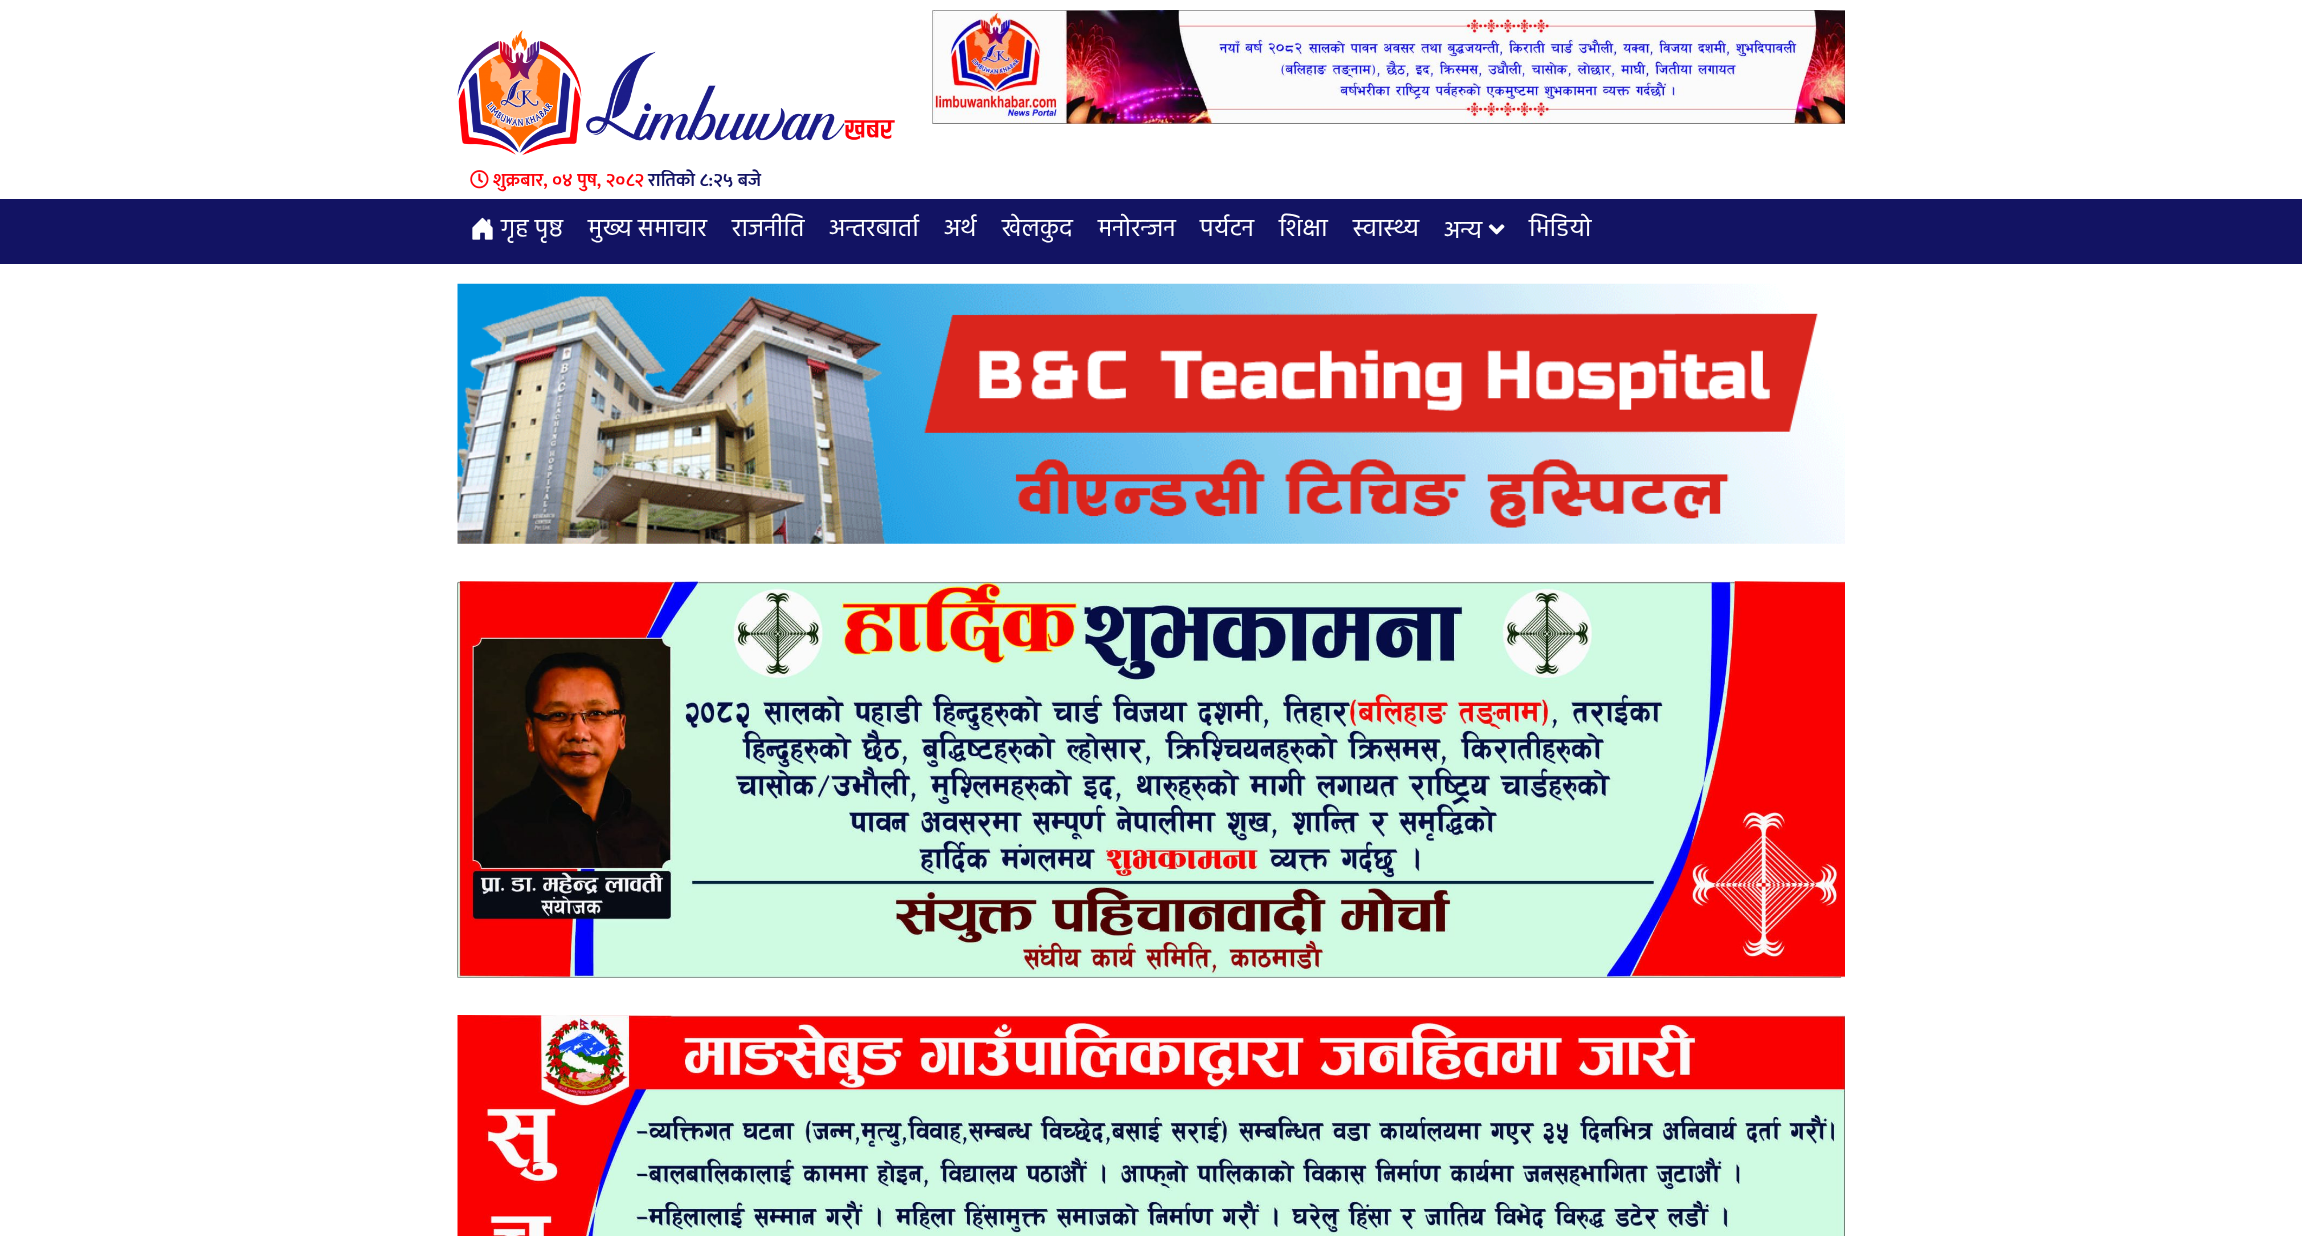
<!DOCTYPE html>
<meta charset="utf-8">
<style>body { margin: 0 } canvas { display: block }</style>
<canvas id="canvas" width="2302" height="1236"></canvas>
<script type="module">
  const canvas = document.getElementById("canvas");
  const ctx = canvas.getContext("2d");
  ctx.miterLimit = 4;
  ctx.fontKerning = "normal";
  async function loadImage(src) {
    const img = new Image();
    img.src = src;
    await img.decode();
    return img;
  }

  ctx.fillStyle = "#ffffff";
  ctx.fillRect(0, 0, 2302, 1236);
  ctx.drawImage(await loadImage("img1.png"), 932, 10, 913, 114);
  ctx.drawImage(await loadImage("img2.png"), 457, 30, 438, 125);
  ctx.drawImage(await loadImage("img3.png"), 470, 170, 19, 19);
  ctx.font = "600 18.75px Mukta";
  ctx.fillStyle = "#fe040c";
  ctx.fillText("शुक्रबार, ०४ पुष, २०८२", 493, 186);
  ctx.fillStyle = "#121363";
  ctx.fillText("रातिको ८:२५ बजे", 648, 186);
  ctx.fillRect(0, 199, 2302, 65);
  ctx.drawImage(await loadImage("img4.png"), 472, 217, 21, 23);
  ctx.font = "25px Hind";
  ctx.fillStyle = "#ffffff";
  ctx.fillText("गृह पृष्ठ", 501, 236);
  ctx.fillText("मुख्य समाचार", 588, 236);
  ctx.fillText("राजनीति", 732, 236);
  ctx.fillText("अन्तरबार्ता", 829, 236);
  ctx.fillText("अर्थ", 944, 236);
  ctx.fillText("खेलकुद", 1002, 236);
  ctx.fillText("मनोरन्जन", 1098, 236);
  ctx.fillText("पर्यटन", 1200, 236);
  ctx.fillText("शिक्षा", 1279, 236);
  ctx.fillText("स्वास्थ्य", 1353, 236);
  ctx.fillText("अन्य", 1444, 238);
  ctx.drawImage(await loadImage("img5.png"), 1488, 224, 17, 11);
  ctx.fillText("भिडियो", 1529, 236);
  ctx.drawImage(await loadImage("img6.png"), 457, 283, 1388, 261);
  ctx.drawImage(await loadImage("img7.png"), 457, 581, 1388, 397);
  ctx.drawImage(await loadImage("img8.png"), 457, 1015, 1388, 221);
</script>
